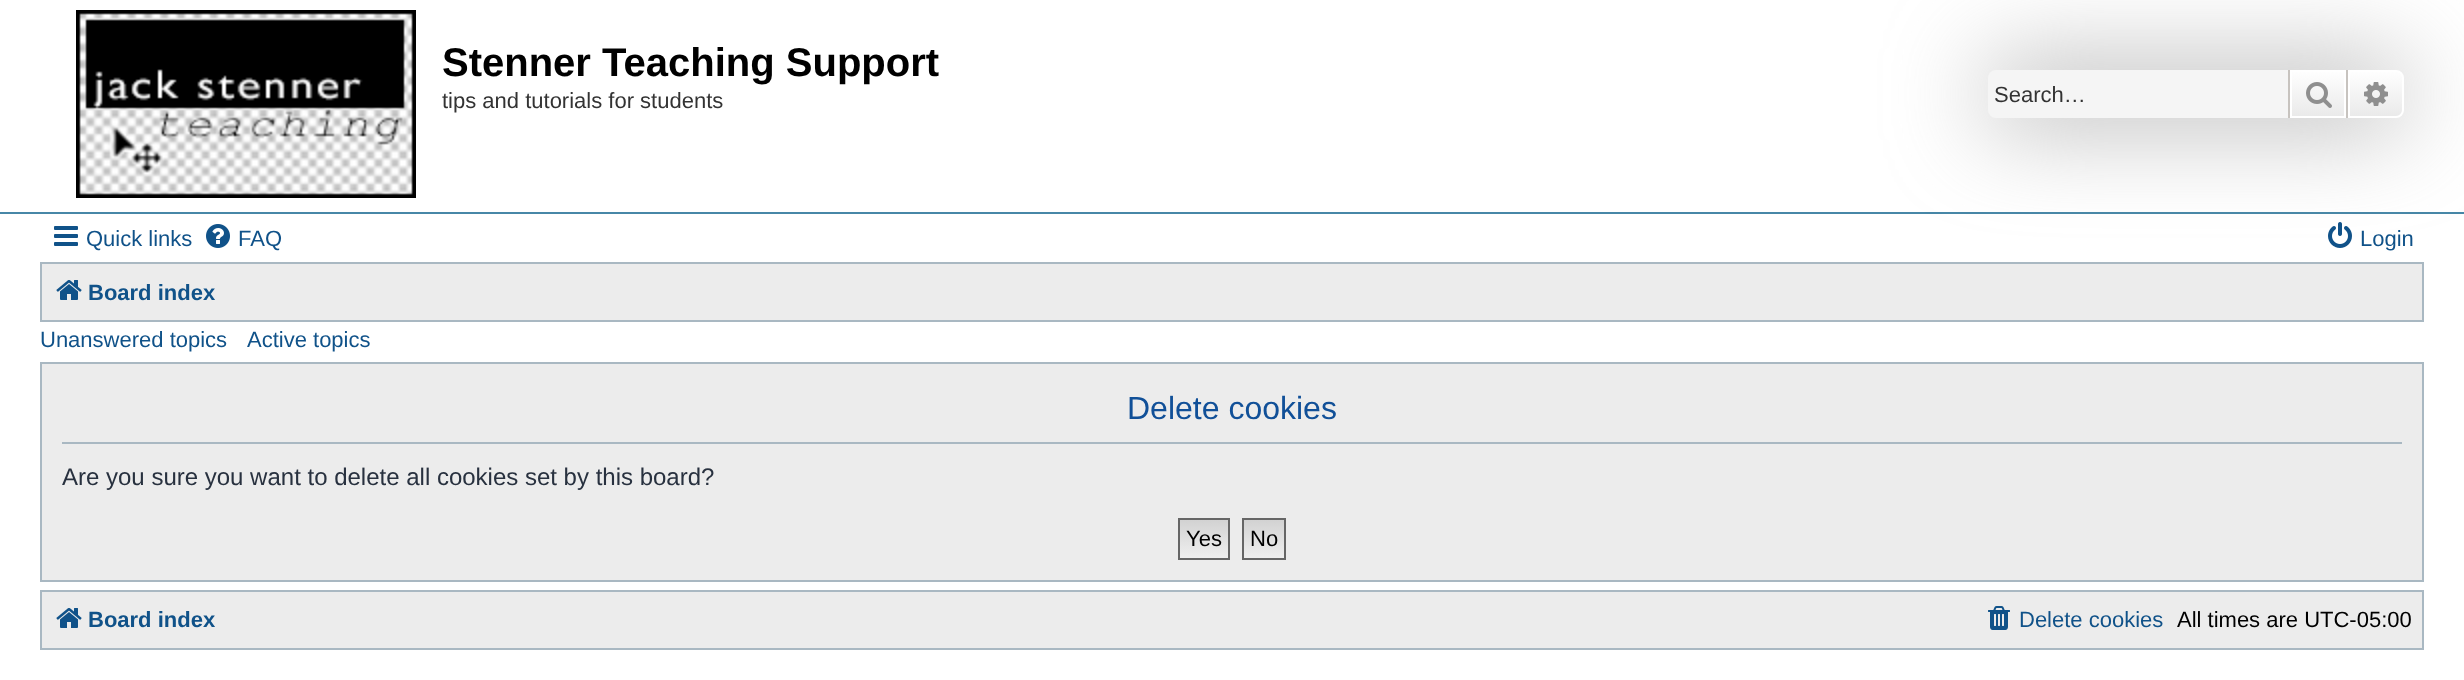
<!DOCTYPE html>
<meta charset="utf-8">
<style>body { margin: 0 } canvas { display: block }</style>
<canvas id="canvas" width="2464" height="680"></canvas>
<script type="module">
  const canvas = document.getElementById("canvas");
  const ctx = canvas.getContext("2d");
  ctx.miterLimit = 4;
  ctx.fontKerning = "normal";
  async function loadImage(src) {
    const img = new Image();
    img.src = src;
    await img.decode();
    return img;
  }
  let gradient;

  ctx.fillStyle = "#ffffff";
  ctx.fillRect(0, 0, 2464, 680);
  ctx.fillStyle = "#4787a7";
  ctx.fillRect(0, 212, 2464, 2);
  ctx.drawImage(await loadImage("img1.png"), 76, 10, 340, 188);
  ctx.font = "bold 40px Liberation Sans";
  ctx.fillStyle = "#000000";
  ctx.fillText("Stenner Teaching Support", 442, 76);
  ctx.font = "22px Liberation Sans";
  ctx.fillStyle = "#333333";
  ctx.fillText("tips and tutorials for students", 442, 108);
  ctx.fillStyle = "#ececec";
  ctx.beginPath();
  ctx.rect(41, 263, 2382, 58);
  ctx.fill();
  ctx.strokeStyle = "#a9b8c2";
  ctx.lineWidth = 2;
  ctx.stroke();
  ctx.fillStyle = "#999999";
  ctx.filter = "blur(50px)";
  ctx.beginPath();
  ctx.roundRect(1988, 70, 416, 48, 8);
  ctx.fill();
  ctx.filter = "none";
  ctx.fillStyle = "#f5f5f5";
  ctx.beginPath();
  ctx.roundRect(1988, 70, 300, 48, [8, 0, 0, 8]);
  ctx.fill();
  ctx.fillStyle = "#333333";
  ctx.fillText("Search…", 1994, 102);
  gradient = ctx.createLinearGradient(2318, 70, 2318, 118);
  gradient.addColorStop(0, "#ffffff");
  gradient.addColorStop(1, "#e9e9e9");
  ctx.fillStyle = gradient;
  ctx.fillRect(2292, 72, 52, 44);
  ctx.strokeStyle = "#ffffff";
  ctx.strokeRect(2291, 71, 54, 46);
  ctx.fillStyle = "#c7c3bf";
  ctx.fillRect(2346, 70, 2, 48);
  ctx.fillRect(2288, 70, 2, 48);
  ctx.drawImage(await loadImage("img2.png"), 2306, 82, 26, 26);
  gradient = ctx.createLinearGradient(2376, 70, 2376, 118);
  gradient.addColorStop(0, "#ffffff");
  gradient.addColorStop(1, "#e9e9e9");
  ctx.fillStyle = gradient;
  ctx.beginPath();
  ctx.roundRect(2349, 71, 54, 46, [0, 7, 7, 0]);
  ctx.fill();
  ctx.stroke();
  ctx.drawImage(await loadImage("img3.png"), 2364, 82, 24, 24);
  ctx.drawImage(await loadImage("img4.png"), 54, 226, 24, 20);
  ctx.fillStyle = "#105289";
  ctx.fillText("Quick links", 86, 246);
  ctx.drawImage(await loadImage("img5.png"), 206, 224, 24, 24);
  ctx.fillText("FAQ", 238, 246);
  ctx.drawImage(await loadImage("img6.png"), 2328, 222, 24, 26);
  ctx.fillText("Login", 2360, 246);
  ctx.drawImage(await loadImage("img7.png"), 56, 280, 26, 20);
  ctx.font = "bold 22px Liberation Sans";
  ctx.fillText("Board index", 88, 300);
  ctx.font = "22px Liberation Sans";
  ctx.fillText("Unanswered topics", 40, 347);
  ctx.fillText("Active topics", 247, 347);
  ctx.fillStyle = "#ececec";
  ctx.beginPath();
  ctx.rect(41, 363, 2382, 218);
  ctx.fill();
  ctx.strokeStyle = "#a9b8c2";
  ctx.stroke();
  ctx.fillStyle = "#a9b8c2";
  ctx.fillRect(62, 442, 2340, 2);
  ctx.font = "32px Liberation Sans";
  ctx.fillStyle = "#115098";
  ctx.fillText("Delete cookies", 1127, 419);
  ctx.font = "24px Liberation Sans";
  ctx.fillStyle = "#28313f";
  ctx.fillText("Are you sure you want to delete all cookies set by this board?", 62, 485);
  gradient = ctx.createLinearGradient(1204, 520, 1204, 558);
  gradient.addColorStop(0, "#d2d2d2");
  gradient.addColorStop(1, "#efefef");
  ctx.fillStyle = gradient;
  ctx.fillRect(1180, 520, 48, 38);
  ctx.strokeStyle = "#666666";
  ctx.strokeRect(1179, 519, 50, 40);
  ctx.font = "22px Liberation Sans";
  ctx.fillStyle = "#000000";
  ctx.fillText("Yes", 1186, 546);
  gradient = ctx.createLinearGradient(1264, 520, 1264, 558);
  gradient.addColorStop(0, "#d2d2d2");
  gradient.addColorStop(1, "#efefef");
  ctx.fillStyle = gradient;
  ctx.fillRect(1244, 520, 40, 38);
  ctx.strokeRect(1243, 519, 42, 40);
  ctx.fillStyle = "#000000";
  ctx.fillText("No", 1250, 546);
  ctx.fillStyle = "#ececec";
  ctx.beginPath();
  ctx.rect(41, 591, 2382, 58);
  ctx.fill();
  ctx.strokeStyle = "#a9b8c2";
  ctx.stroke();
  ctx.drawImage(await loadImage("img7.png"), 56, 608, 26, 20);
  ctx.font = "bold 22px Liberation Sans";
  ctx.fillStyle = "#105289";
  ctx.fillText("Board index", 88, 627);
  ctx.drawImage(await loadImage("img8.png"), 1988, 606, 22, 24);
  ctx.font = "22px Liberation Sans";
  ctx.fillText("Delete cookies", 2019, 627);
  ctx.fillStyle = "#000000";
  ctx.fillText("All times are UTC-05:00", 2177, 627);
</script>
